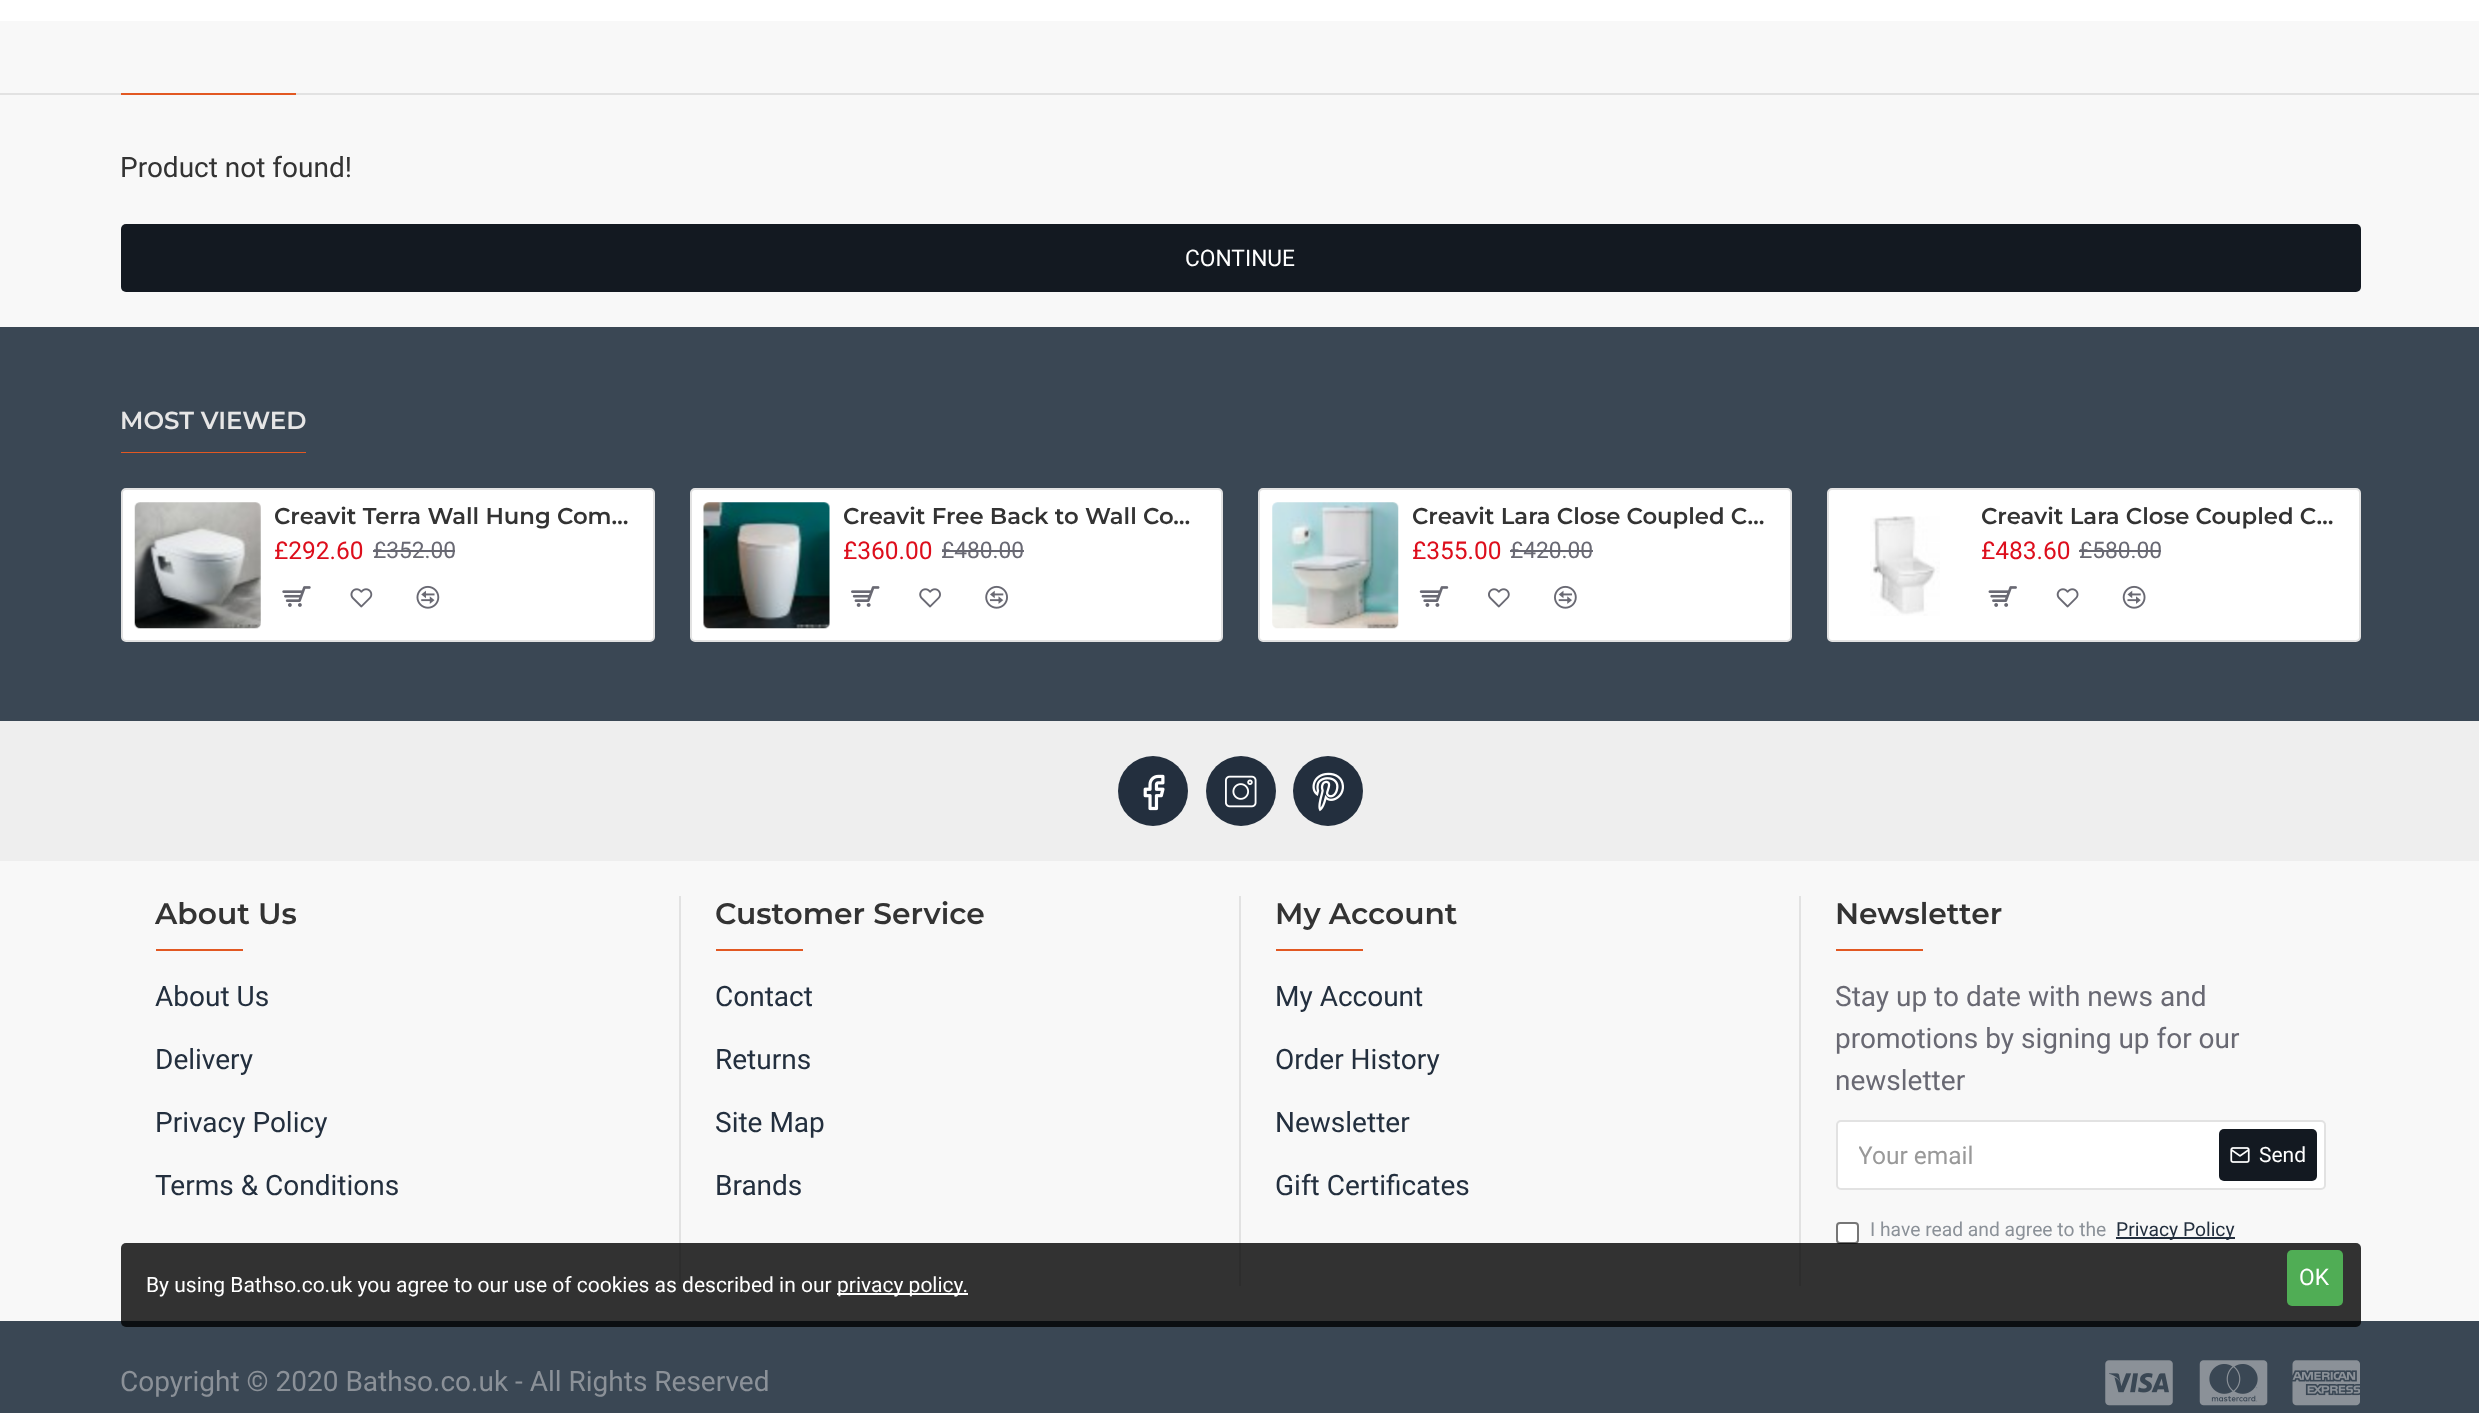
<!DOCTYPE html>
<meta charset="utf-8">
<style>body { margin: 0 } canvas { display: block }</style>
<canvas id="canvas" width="2479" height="1413"></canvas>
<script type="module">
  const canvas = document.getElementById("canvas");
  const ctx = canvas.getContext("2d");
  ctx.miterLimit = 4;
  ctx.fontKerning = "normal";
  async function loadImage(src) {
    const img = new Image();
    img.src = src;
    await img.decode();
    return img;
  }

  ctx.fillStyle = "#f8f8f8";
  ctx.fillRect(0, 0, 2479, 1413);
  ctx.fillStyle = "#ffffff";
  ctx.fillRect(0, 0, 2479, 21);
  ctx.fillStyle = "#e2e2e2";
  ctx.fillRect(0, 93, 2479, 2);
  ctx.fillStyle = "#e25822";
  ctx.fillRect(121, 93, 175, 2);
  ctx.font = "28px Roboto";
  ctx.fillStyle = "#333333";
  ctx.fillText("Product not found!", 120, 177);
  ctx.fillStyle = "#131921";
  ctx.beginPath();
  ctx.roundRect(121, 224, 2240, 68, 5);
  ctx.fill();
  ctx.font = "22.75px Roboto";
  ctx.fillStyle = "#ffffff";
  ctx.fillText("CONTINUE", 1185, 266);
  ctx.fillStyle = "#3a4754";
  ctx.fillRect(0, 327, 2479, 394);
  ctx.fillStyle = "#e25822";
  ctx.fillRect(121, 452, 185, 1);
  ctx.font = "600 24.5px Montserrat";
  ctx.fillStyle = "#e6e6e6";
  ctx.fillText("MOST VIEWED", 120, 429);
  ctx.fillStyle = "#ffffff";
  ctx.beginPath();
  ctx.roundRect(122, 489, 532, 152, 4);
  ctx.fill();
  ctx.strokeStyle = "#e2e2e2";
  ctx.lineWidth = 2;
  ctx.stroke();
  ctx.drawImage(await loadImage("img1.png"), 134, 502, 127, 127);
  ctx.font = "600 22.75px Montserrat";
  ctx.fillStyle = "#333333";
  ctx.fillText("Creavit Terra Wall Hung Com…", 274, 524);
  ctx.font = "24.5px Roboto";
  ctx.fillStyle = "#dd0e1c";
  ctx.fillText("£292.60", 274, 559);
  ctx.font = "22.75px Roboto";
  ctx.fillStyle = "#696973";
  ctx.fillText("£352.00", 373, 558);
  ctx.fillRect(373, 550, 82, 2);
  ctx.drawImage(await loadImage("img2.png"), 282, 586, 29, 21);
  ctx.drawImage(await loadImage("img3.png"), 350, 588, 23, 20);
  ctx.drawImage(await loadImage("img4.png"), 416, 585, 24, 24);
  ctx.fillStyle = "#ffffff";
  ctx.beginPath();
  ctx.roundRect(691, 489, 531, 152, 4);
  ctx.fill();
  ctx.stroke();
  ctx.drawImage(await loadImage("img5.png"), 703, 502, 127, 127);
  ctx.font = "600 22.75px Montserrat";
  ctx.fillStyle = "#333333";
  ctx.fillText("Creavit Free Back to Wall Co…", 843, 524);
  ctx.font = "24.5px Roboto";
  ctx.fillStyle = "#dd0e1c";
  ctx.fillText("£360.00", 843, 559);
  ctx.font = "22.75px Roboto";
  ctx.fillStyle = "#696973";
  ctx.fillText("£480.00", 941, 558);
  ctx.fillRect(942, 550, 82, 2);
  ctx.drawImage(await loadImage("img6.png"), 851, 586, 29, 21);
  ctx.drawImage(await loadImage("img7.png"), 919, 588, 22, 20);
  ctx.drawImage(await loadImage("img8.png"), 985, 585, 23, 24);
  ctx.fillStyle = "#ffffff";
  ctx.beginPath();
  ctx.roundRect(1259, 489, 532, 152, 4);
  ctx.fill();
  ctx.stroke();
  ctx.drawImage(await loadImage("img9.png"), 1272, 502, 127, 127);
  ctx.font = "600 22.75px Montserrat";
  ctx.fillStyle = "#333333";
  ctx.fillText("Creavit Lara Close Coupled C…", 1412, 524);
  ctx.font = "24.5px Roboto";
  ctx.fillStyle = "#dd0e1c";
  ctx.fillText("£355.00", 1412, 559);
  ctx.font = "22.75px Roboto";
  ctx.fillStyle = "#696973";
  ctx.fillText("£420.00", 1510, 558);
  ctx.fillRect(1510, 550, 83, 2);
  ctx.drawImage(await loadImage("img10.png"), 1419, 586, 30, 21);
  ctx.drawImage(await loadImage("img11.png"), 1488, 588, 22, 20);
  ctx.drawImage(await loadImage("img12.png"), 1554, 585, 23, 24);
  ctx.fillStyle = "#ffffff";
  ctx.beginPath();
  ctx.roundRect(1828, 489, 532, 152, 4);
  ctx.fill();
  ctx.stroke();
  ctx.drawImage(await loadImage("img13.png"), 1870, 516, 70, 100);
  ctx.font = "600 22.75px Montserrat";
  ctx.fillStyle = "#333333";
  ctx.fillText("Creavit Lara Close Coupled C…", 1981, 524);
  ctx.font = "24.5px Roboto";
  ctx.fillStyle = "#dd0e1c";
  ctx.fillText("£483.60", 1981, 559);
  ctx.font = "22.75px Roboto";
  ctx.fillStyle = "#696973";
  ctx.fillText("£580.00", 2079, 558);
  ctx.fillRect(2079, 550, 82, 2);
  ctx.drawImage(await loadImage("img14.png"), 1988, 586, 29, 21);
  ctx.drawImage(await loadImage("img15.png"), 2056, 588, 23, 20);
  ctx.drawImage(await loadImage("img16.png"), 2122, 585, 24, 24);
  ctx.fillStyle = "#eeeeee";
  ctx.fillRect(0, 721, 2479, 140);
  ctx.fillStyle = "#232f3e";
  ctx.beginPath();
  ctx.arc(1153, 791, 35, 0, Math.PI * 2);
  ctx.fill();
  ctx.drawImage(await loadImage("img17.png"), 1143, 774, 22, 37);
  ctx.beginPath();
  ctx.arc(1241, 791, 35, 0, Math.PI * 2);
  ctx.fill();
  ctx.drawImage(await loadImage("img18.png"), 1225, 775, 32, 33);
  ctx.beginPath();
  ctx.arc(1328, 791, 35, 0, Math.PI * 2);
  ctx.fill();
  ctx.drawImage(await loadImage("img19.png"), 1312, 772, 32, 40);
  ctx.fillStyle = "#e2e2e2";
  ctx.fillRect(679, 896, 2, 390);
  ctx.font = "600 29.75px Montserrat";
  ctx.fillStyle = "#333333";
  ctx.fillText("About Us", 155, 924);
  ctx.fillStyle = "#e25822";
  ctx.fillRect(156, 949, 87, 2);
  ctx.font = "28px Roboto";
  ctx.fillStyle = "#232f3e";
  ctx.fillText("About Us", 155, 1006);
  ctx.fillText("Delivery", 155, 1069);
  ctx.fillText("Privacy Policy", 155, 1132);
  ctx.fillText("Terms & Conditions", 155, 1195);
  ctx.fillStyle = "#e2e2e2";
  ctx.fillRect(1239, 896, 2, 390);
  ctx.font = "600 29.75px Montserrat";
  ctx.fillStyle = "#333333";
  ctx.fillText("Customer Service", 715, 924);
  ctx.fillStyle = "#e25822";
  ctx.fillRect(716, 949, 87, 2);
  ctx.font = "28px Roboto";
  ctx.fillStyle = "#232f3e";
  ctx.fillText("Contact", 715, 1006);
  ctx.fillText("Returns", 715, 1069);
  ctx.fillText("Site Map", 715, 1132);
  ctx.fillText("Brands", 715, 1195);
  ctx.fillStyle = "#e2e2e2";
  ctx.fillRect(1799, 896, 2, 390);
  ctx.font = "600 29.75px Montserrat";
  ctx.fillStyle = "#333333";
  ctx.fillText("My Account", 1275, 924);
  ctx.fillStyle = "#e25822";
  ctx.fillRect(1276, 949, 87, 2);
  ctx.font = "28px Roboto";
  ctx.fillStyle = "#232f3e";
  ctx.fillText("My Account", 1275, 1006);
  ctx.fillText("Order History", 1275, 1069);
  ctx.fillText("Newsletter", 1275, 1132);
  ctx.fillText("Gift Certificates", 1275, 1195);
  ctx.font = "600 29.75px Montserrat";
  ctx.fillStyle = "#333333";
  ctx.fillText("Newsletter", 1835, 924);
  ctx.fillStyle = "#e25822";
  ctx.fillRect(1836, 949, 87, 2);
  ctx.font = "28px Roboto";
  ctx.fillStyle = "#696973";
  ctx.fillText("Stay up to date with news and", 1835, 1006);
  ctx.fillText("promotions by signing up for our", 1835, 1048);
  ctx.fillText("newsletter", 1835, 1090);
  ctx.fillStyle = "#ffffff";
  ctx.beginPath();
  ctx.roundRect(1837, 1121, 488, 68, 4);
  ctx.fill();
  ctx.stroke();
  ctx.save();
  ctx.beginPath();
  ctx.rect(1859, 1141, 444, 28);
  ctx.clip();
  ctx.font = "24.5px Roboto";
  ctx.fillStyle = "#999999";
  ctx.fillText("Your email", 1858, 1164);
  ctx.restore();
  ctx.fillStyle = "#131921";
  ctx.beginPath();
  ctx.roundRect(2219, 1129, 98, 52, 5);
  ctx.fill();
  ctx.drawImage(await loadImage("img20.png"), 2230, 1147, 20, 16);
  ctx.font = "21px Roboto";
  ctx.fillStyle = "#ffffff";
  ctx.fillText("Send", 2259, 1162);
  ctx.beginPath();
  ctx.roundRect(1837, 1223, 21, 20, 3);
  ctx.fill();
  ctx.strokeStyle = "#767676";
  ctx.stroke();
  ctx.font = "19.25px Roboto";
  ctx.fillStyle = "#8b9198";
  ctx.fillText("I have read and agree to the", 1870, 1236);
  ctx.fillStyle = "#232f3e";
  ctx.fillRect(2116, 1237, 119, 2);
  ctx.fillText("Privacy Policy", 2116, 1236);
  ctx.fillStyle = "#3a4754";
  ctx.fillRect(0, 1321, 2479, 92);
  ctx.font = "28px Roboto";
  ctx.fillStyle = "#8b9198";
  ctx.fillText("Copyright © 2020 Bathso.co.uk - All Rights Reserved", 120, 1391);
  ctx.drawImage(await loadImage("img21.png"), 2105, 1360, 68, 46);
  ctx.drawImage(await loadImage("img22.png"), 2199, 1360, 69, 46);
  ctx.drawImage(await loadImage("img23.png"), 2292, 1360, 68, 46);
  ctx.fillStyle = "rgba(0, 0, 0, 0.8)";
  ctx.beginPath();
  ctx.roundRect(121, 1243, 2240, 84, 5);
  ctx.fill();
  ctx.font = "21px Roboto";
  ctx.fillStyle = "#ffffff";
  ctx.fillText("By using Bathso.co.uk you agree to our use of cookies as described in our", 146, 1292);
  ctx.fillRect(837, 1293, 131, 2);
  ctx.fillText("privacy policy.", 837, 1292);
  ctx.fillStyle = "#50ad55";
  ctx.beginPath();
  ctx.roundRect(2287, 1250, 56, 56, 5);
  ctx.fill();
  ctx.font = "22.75px Roboto";
  ctx.fillStyle = "#ffffff";
  ctx.fillText("OK", 2299, 1285);
</script>
